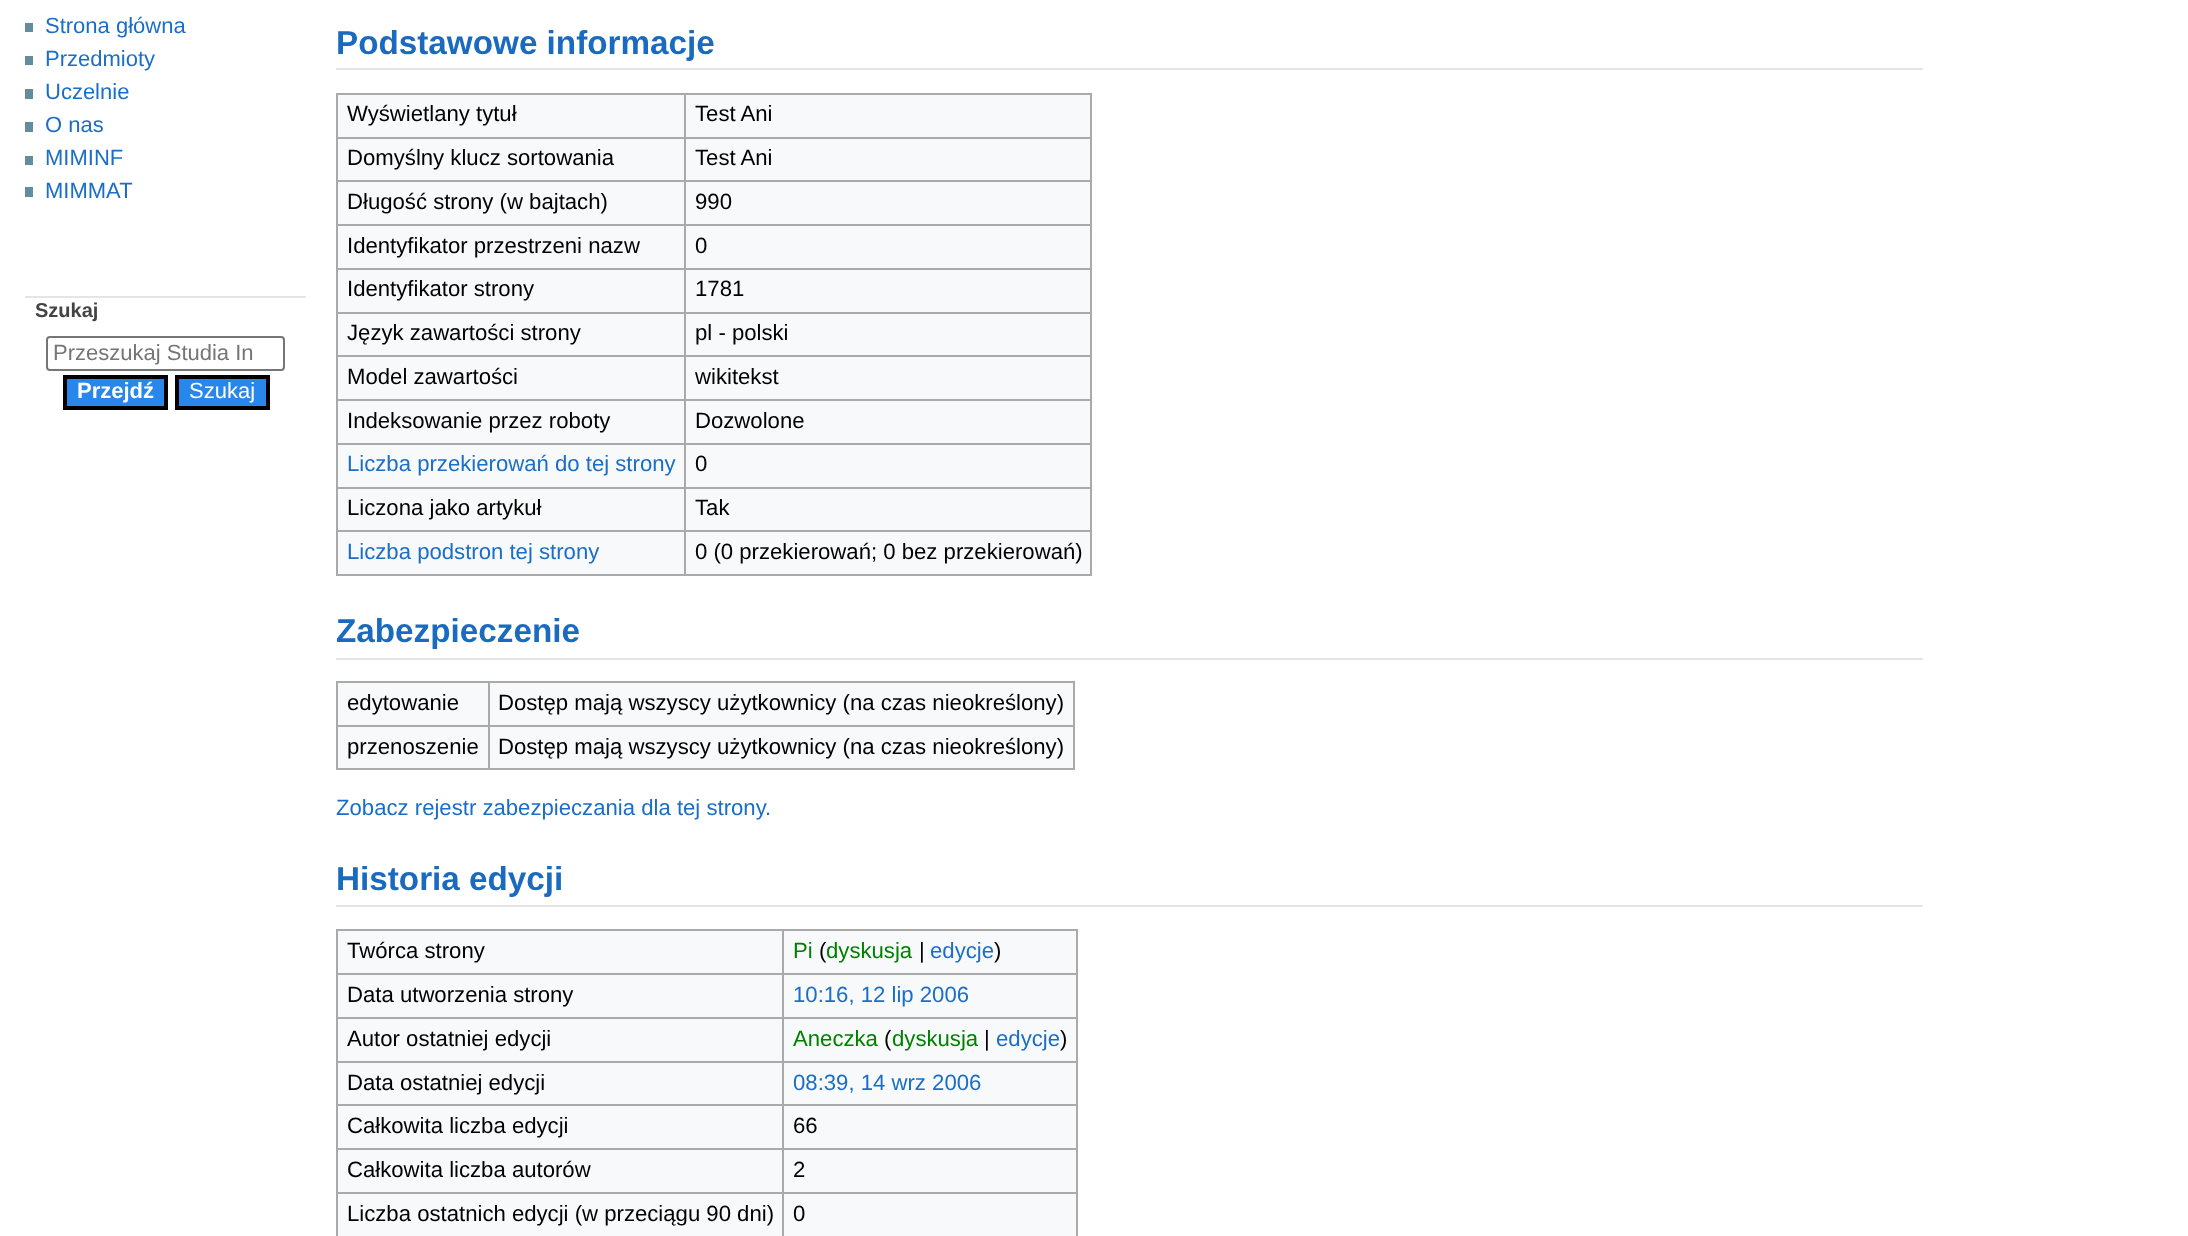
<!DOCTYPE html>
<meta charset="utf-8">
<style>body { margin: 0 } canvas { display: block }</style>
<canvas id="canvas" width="2188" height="1236"></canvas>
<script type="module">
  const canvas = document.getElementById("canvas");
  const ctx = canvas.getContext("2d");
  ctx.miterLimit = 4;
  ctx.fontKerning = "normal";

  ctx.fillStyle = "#ffffff";
  ctx.fillRect(0, 0, 2188, 1236);
  ctx.fillStyle = "#638c9c";
  ctx.fillRect(25, 23, 8, 9);
  ctx.font = "22px Liberation Sans";
  ctx.fillStyle = "#1a6ec7";
  ctx.fillText("Strona główna", 45, 33);
  ctx.fillStyle = "#638c9c";
  ctx.fillRect(25, 56, 8, 9);
  ctx.fillStyle = "#1a6ec7";
  ctx.fillText("Przedmioty", 45, 66);
  ctx.fillStyle = "#638c9c";
  ctx.fillRect(25, 89, 8, 10);
  ctx.fillStyle = "#1a6ec7";
  ctx.fillText("Uczelnie", 45, 99);
  ctx.fillStyle = "#638c9c";
  ctx.fillRect(25, 122, 8, 10);
  ctx.fillStyle = "#1a6ec7";
  ctx.fillText("O nas", 45, 132);
  ctx.fillStyle = "#638c9c";
  ctx.fillRect(25, 156, 8, 9);
  ctx.fillStyle = "#1a6ec7";
  ctx.fillText("MIMINF", 45, 165);
  ctx.fillStyle = "#638c9c";
  ctx.fillRect(25, 187, 8, 10);
  ctx.fillStyle = "#1a6ec7";
  ctx.fillText("MIMMAT", 45, 198);
  ctx.fillStyle = "#e5e5e5";
  ctx.fillRect(25, 296, 281, 2);
  ctx.font = "bold 20px Liberation Sans";
  ctx.fillStyle = "#444444";
  ctx.fillText("Szukaj", 35, 317);
  ctx.beginPath();
  ctx.roundRect(47, 337, 237, 33, 3);
  ctx.strokeStyle = "#767676";
  ctx.lineWidth = 2;
  ctx.stroke();
  ctx.font = "22px Liberation Sans";
  ctx.fillStyle = "#757575";
  ctx.fillText("Przeszukaj Studia In", 53, 360);
  ctx.fillStyle = "#2787eb";
  ctx.beginPath();
  ctx.rect(65, 377, 101, 31);
  ctx.fill();
  ctx.strokeStyle = "#000000";
  ctx.lineWidth = 4;
  ctx.stroke();
  ctx.font = "bold 22px Liberation Sans";
  ctx.fillStyle = "#ffffff";
  ctx.fillText("Przejdź", 77, 398);
  ctx.fillStyle = "#2787eb";
  ctx.beginPath();
  ctx.rect(177, 377, 91, 31);
  ctx.fill();
  ctx.stroke();
  ctx.font = "22px Liberation Sans";
  ctx.fillStyle = "#ffffff";
  ctx.fillText("Szukaj", 189, 398);
  ctx.fillStyle = "#e5e5e5";
  ctx.fillRect(336, 68, 1587, 2);
  ctx.font = "bold 33.25px Liberation Sans";
  ctx.fillStyle = "#1a6abf";
  ctx.fillText("Podstawowe informacje", 336, 54);
  ctx.fillStyle = "#f8f9fa";
  ctx.fillRect(338, 95, 752, 479);
  ctx.fillStyle = "#aaaaaa";
  ctx.fillRect(336, 93, 756, 2);
  ctx.fillRect(1090, 93, 2, 483);
  ctx.fillRect(336, 574, 756, 2);
  ctx.fillRect(336, 93, 2, 483);
  ctx.font = "22.15px Liberation Sans";
  ctx.fillStyle = "#000000";
  ctx.fillText("Wyświetlany tytuł", 347, 121);
  ctx.fillStyle = "#aaaaaa";
  ctx.fillRect(684, 137, 408, 2);
  ctx.fillRect(684, 180, 408, 2);
  ctx.fillRect(684, 224, 408, 2);
  ctx.fillRect(684, 268, 408, 2);
  ctx.fillRect(684, 312, 408, 2);
  ctx.fillRect(684, 355, 408, 2);
  ctx.fillRect(684, 399, 408, 2);
  ctx.fillRect(684, 443, 408, 2);
  ctx.fillRect(684, 487, 408, 2);
  ctx.fillRect(684, 530, 408, 2);
  ctx.fillRect(684, 530, 2, 46);
  ctx.fillRect(336, 530, 350, 2);
  ctx.fillRect(684, 487, 2, 45);
  ctx.fillRect(336, 487, 350, 2);
  ctx.fillRect(684, 443, 2, 45);
  ctx.fillRect(336, 443, 350, 2);
  ctx.fillRect(684, 399, 2, 46);
  ctx.fillRect(336, 399, 350, 2);
  ctx.fillRect(684, 355, 2, 46);
  ctx.fillRect(336, 355, 350, 2);
  ctx.fillRect(684, 312, 2, 45);
  ctx.fillRect(336, 312, 350, 2);
  ctx.fillRect(684, 268, 2, 45);
  ctx.fillRect(336, 268, 350, 2);
  ctx.fillRect(684, 224, 2, 46);
  ctx.fillRect(336, 224, 350, 2);
  ctx.fillRect(684, 180, 2, 46);
  ctx.fillRect(336, 180, 350, 2);
  ctx.fillRect(684, 137, 2, 45);
  ctx.fillRect(336, 137, 350, 2);
  ctx.fillRect(684, 93, 2, 45);
  ctx.fillStyle = "#000000";
  ctx.fillText("Test Ani", 695, 121);
  ctx.fillText("Domyślny klucz sortowania", 347, 165);
  ctx.fillText("Test Ani", 695, 165);
  ctx.fillText("Długość strony (w bajtach)", 347, 209);
  ctx.fillText("990", 695, 209);
  ctx.fillText("Identyfikator przestrzeni nazw", 347, 253);
  ctx.fillText("0", 695, 253);
  ctx.fillText("Identyfikator strony", 347, 296);
  ctx.fillText("1781", 695, 296);
  ctx.fillText("Język zawartości strony", 347, 340);
  ctx.fillText("pl - polski", 695, 340);
  ctx.fillText("Model zawartości", 347, 384);
  ctx.fillText("wikitekst", 695, 384);
  ctx.fillText("Indeksowanie przez roboty", 347, 428);
  ctx.fillText("Dozwolone", 695, 428);
  ctx.fillStyle = "#1a6ec7";
  ctx.fillText("Liczba przekierowań do tej strony", 347, 471);
  ctx.fillStyle = "#000000";
  ctx.fillText("0", 695, 471);
  ctx.fillText("Liczona jako artykuł", 347, 515);
  ctx.fillText("Tak", 695, 515);
  ctx.fillStyle = "#1a6ec7";
  ctx.fillText("Liczba podstron tej strony", 347, 559);
  ctx.fillStyle = "#000000";
  ctx.fillText("0 (0 przekierowań; 0 bez przekierowań)", 695, 559);
  ctx.fillStyle = "#e5e5e5";
  ctx.fillRect(336, 658, 1587, 2);
  ctx.font = "bold 33.25px Liberation Sans";
  ctx.fillStyle = "#1a6abf";
  ctx.fillText("Zabezpieczenie", 336, 642);
  ctx.fillStyle = "#f8f9fa";
  ctx.fillRect(338, 683, 735, 85);
  ctx.fillStyle = "#aaaaaa";
  ctx.fillRect(336, 681, 739, 2);
  ctx.fillRect(1073, 681, 2, 89);
  ctx.fillRect(336, 768, 739, 2);
  ctx.fillRect(336, 681, 2, 89);
  ctx.font = "22.15px Liberation Sans";
  ctx.fillStyle = "#000000";
  ctx.fillText("edytowanie", 347, 710);
  ctx.fillStyle = "#aaaaaa";
  ctx.fillRect(488, 725, 587, 2);
  ctx.fillRect(488, 725, 2, 45);
  ctx.fillRect(336, 725, 154, 2);
  ctx.fillRect(488, 681, 2, 45);
  ctx.fillStyle = "#000000";
  ctx.fillText("Dostęp mają wszyscy użytkownicy (na czas nieokreślony)", 498, 710);
  ctx.fillText("przenoszenie", 347, 754);
  ctx.fillText("Dostęp mają wszyscy użytkownicy (na czas nieokreślony)", 498, 754);
  ctx.fillStyle = "#1a6ec7";
  ctx.fillText("Zobacz rejestr zabezpieczania dla tej strony.", 336, 815);
  ctx.fillStyle = "#e5e5e5";
  ctx.fillRect(336, 905, 1587, 2);
  ctx.font = "bold 33.25px Liberation Sans";
  ctx.fillStyle = "#1a6abf";
  ctx.fillText("Historia edycji", 336, 890);
  ctx.fillStyle = "#f8f9fa";
  ctx.fillRect(338, 931, 738, 305);
  ctx.fillStyle = "#aaaaaa";
  ctx.fillRect(336, 929, 742, 2);
  ctx.fillRect(1076, 929, 2, 307);
  ctx.fillRect(336, 929, 2, 307);
  ctx.font = "22.15px Liberation Sans";
  ctx.fillStyle = "#000000";
  ctx.fillText("Twórca strony", 347, 958);
  ctx.fillStyle = "#aaaaaa";
  ctx.fillRect(782, 973, 296, 2);
  ctx.fillRect(782, 1017, 296, 2);
  ctx.fillRect(782, 1061, 296, 2);
  ctx.fillRect(782, 1104, 296, 2);
  ctx.fillRect(782, 1148, 296, 2);
  ctx.fillRect(782, 1192, 296, 2);
  ctx.fillRect(782, 1192, 2, 44);
  ctx.fillRect(336, 1192, 448, 2);
  ctx.fillRect(782, 1148, 2, 46);
  ctx.fillRect(336, 1148, 448, 2);
  ctx.fillRect(782, 1104, 2, 46);
  ctx.fillRect(336, 1104, 448, 2);
  ctx.fillRect(782, 1061, 2, 45);
  ctx.fillRect(336, 1061, 448, 2);
  ctx.fillRect(782, 1017, 2, 45);
  ctx.fillRect(336, 1017, 448, 2);
  ctx.fillRect(782, 973, 2, 46);
  ctx.fillRect(336, 973, 448, 2);
  ctx.fillRect(782, 929, 2, 46);
  ctx.fillStyle = "#008000";
  ctx.fillText("Pi", 793, 958);
  ctx.fillStyle = "#000000";
  ctx.fillText("(", 819, 958);
  ctx.fillStyle = "#008000";
  ctx.fillText("dyskusja", 826, 958);
  ctx.fillStyle = "#000000";
  ctx.fillText("|", 919, 958);
  ctx.fillStyle = "#1a6ec7";
  ctx.fillText("edycje", 930, 958);
  ctx.fillStyle = "#000000";
  ctx.fillText(")", 994, 958);
  ctx.fillText("Data utworzenia strony", 347, 1002);
  ctx.fillStyle = "#1a6ec7";
  ctx.fillText("10:16, 12 lip 2006", 793, 1002);
  ctx.fillStyle = "#000000";
  ctx.fillText("Autor ostatniej edycji", 347, 1046);
  ctx.fillStyle = "#008000";
  ctx.fillText("Aneczka", 793, 1046);
  ctx.fillStyle = "#000000";
  ctx.fillText("(", 884, 1046);
  ctx.fillStyle = "#008000";
  ctx.fillText("dyskusja", 892, 1046);
  ctx.fillStyle = "#000000";
  ctx.fillText("|", 984, 1046);
  ctx.fillStyle = "#1a6ec7";
  ctx.fillText("edycje", 996, 1046);
  ctx.fillStyle = "#000000";
  ctx.fillText(")", 1060, 1046);
  ctx.fillText("Data ostatniej edycji", 347, 1090);
  ctx.fillStyle = "#1a6ec7";
  ctx.fillText("08:39, 14 wrz 2006", 793, 1090);
  ctx.fillStyle = "#000000";
  ctx.fillText("Całkowita liczba edycji", 347, 1133);
  ctx.fillText("66", 793, 1133);
  ctx.fillText("Całkowita liczba autorów", 347, 1177);
  ctx.fillText("2", 793, 1177);
  ctx.fillText("Liczba ostatnich edycji (w przeciągu 90 dni)", 347, 1221);
  ctx.fillText("0", 793, 1221);
</script>
